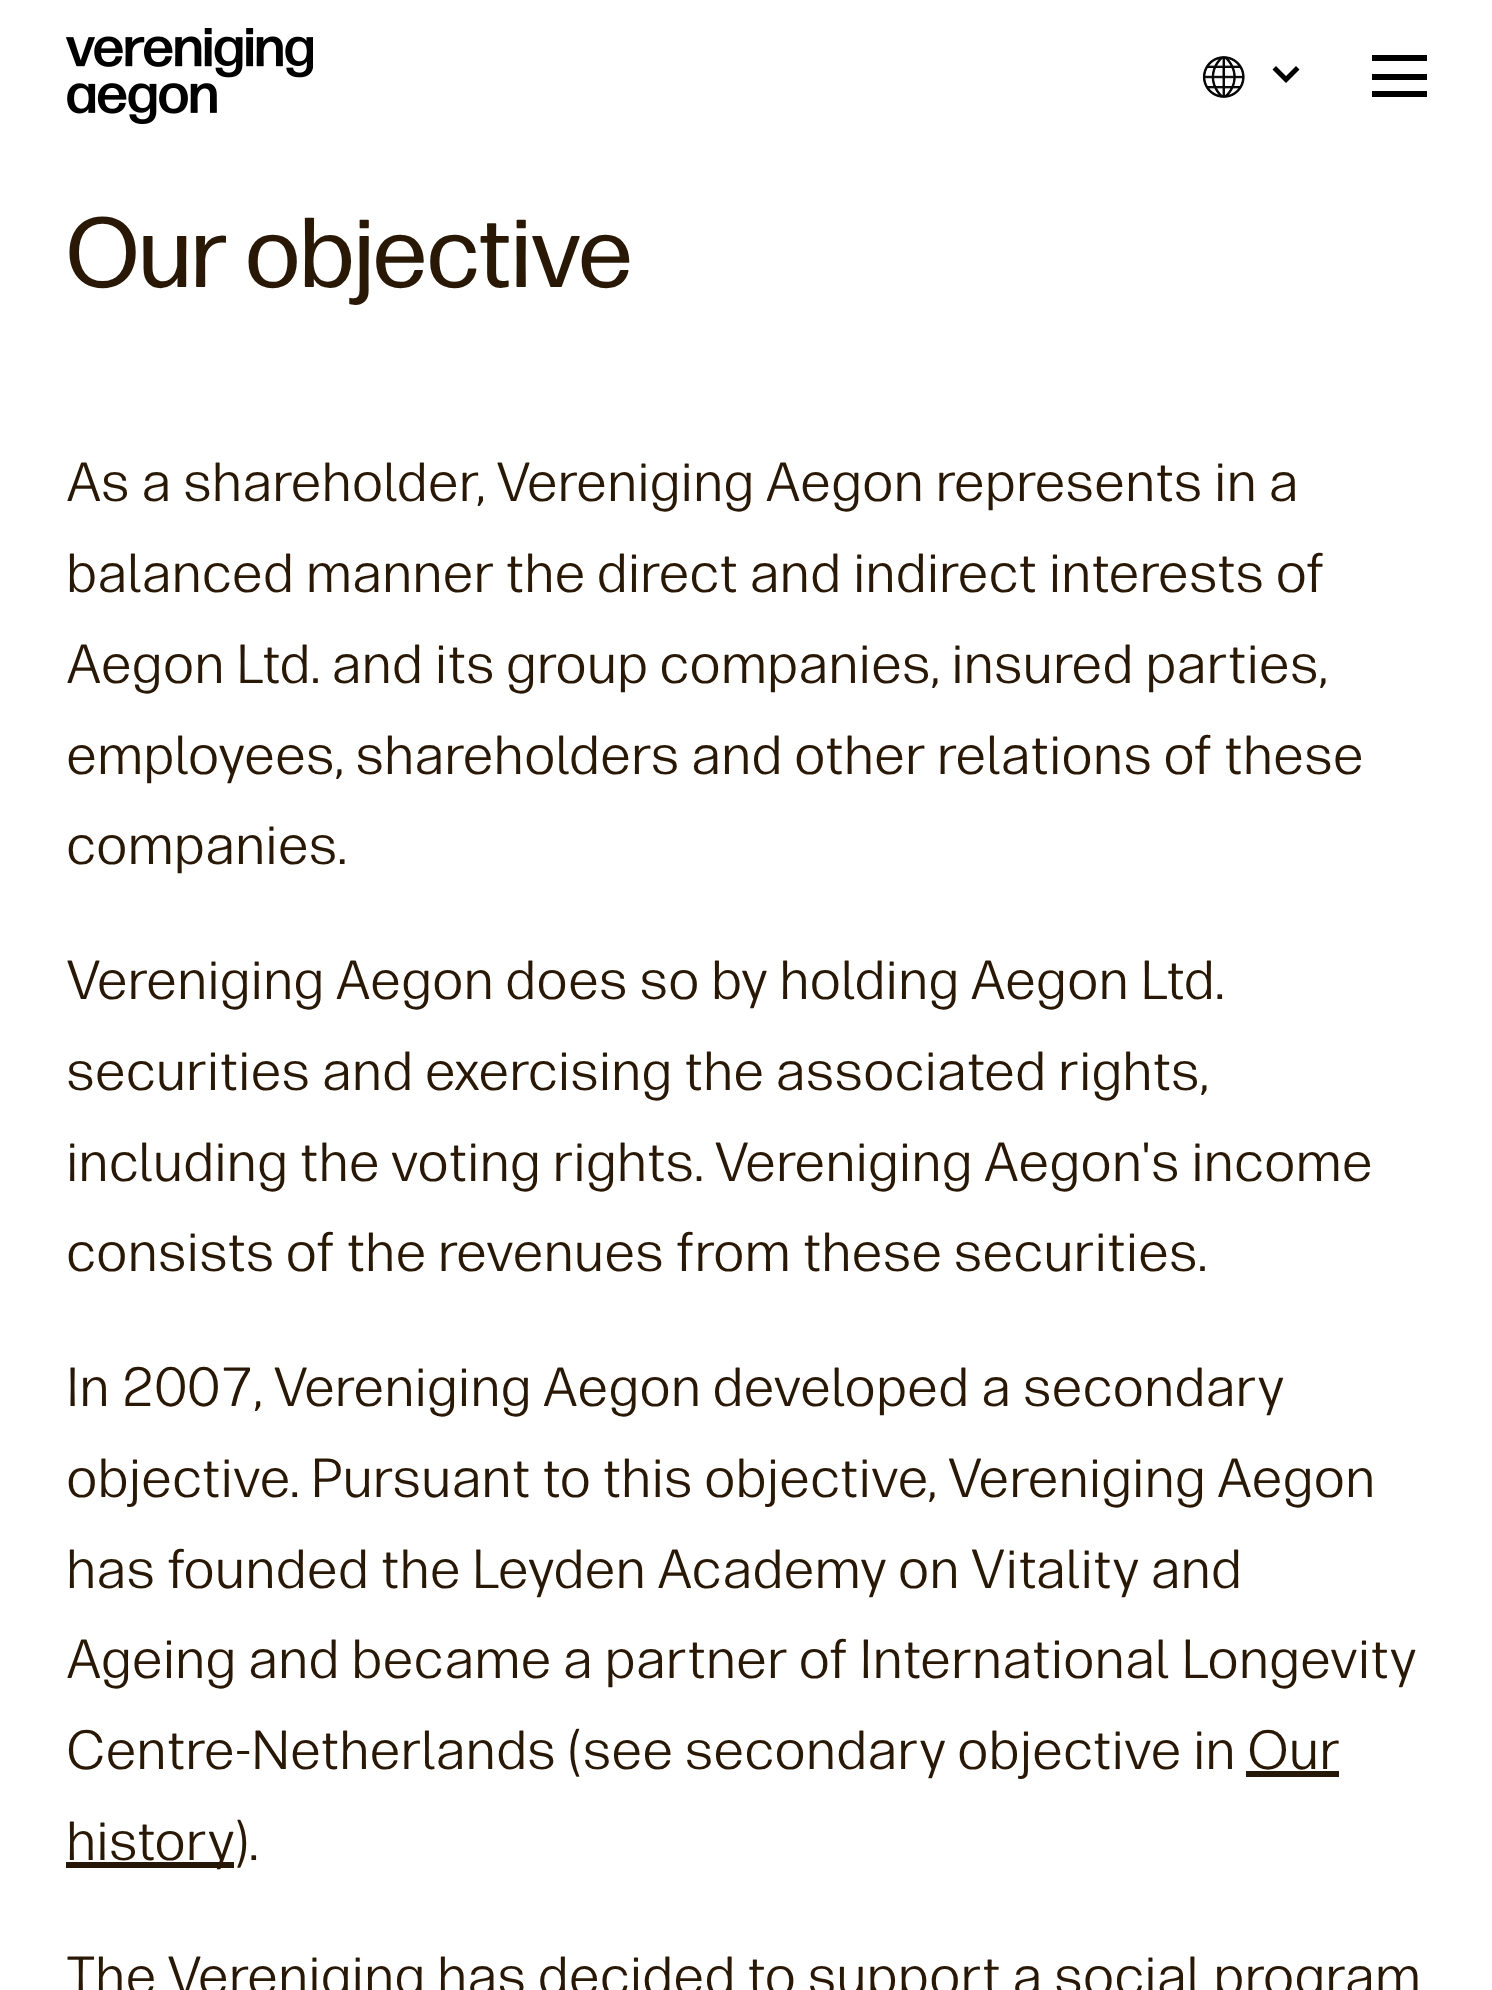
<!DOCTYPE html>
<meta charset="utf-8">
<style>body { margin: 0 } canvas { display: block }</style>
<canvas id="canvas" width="1492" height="1990"></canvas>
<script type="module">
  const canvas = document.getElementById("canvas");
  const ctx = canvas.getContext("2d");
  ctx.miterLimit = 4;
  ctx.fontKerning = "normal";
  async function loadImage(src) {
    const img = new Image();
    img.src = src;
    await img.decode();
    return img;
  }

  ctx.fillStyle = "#ffffff";
  ctx.fillRect(0, 0, 1492, 1990);
  ctx.drawImage(await loadImage("img1.png"), 66, 28, 247, 96);
  ctx.drawImage(await loadImage("img2.png"), 1202, 56, 43, 42);
  ctx.fillStyle = "#000000";
  ctx.beginPath();
  ctx.moveTo(1286, 83);
  ctx.lineTo(1272.5, 69.5);
  ctx.lineTo(1276, 66);
  ctx.lineTo(1286, 76);
  ctx.lineTo(1296, 66);
  ctx.lineTo(1299.5, 69.5);
  ctx.closePath();
  ctx.fill();
  ctx.fillRect(1372, 55, 55, 6);
  ctx.fillRect(1372, 74, 55, 6);
  ctx.fillRect(1372, 91, 55, 6);
  ctx.font = "99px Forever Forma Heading";
  ctx.fillStyle = "#281805";
  ctx.fillText("Our objective", 66, 287);
  ctx.font = "55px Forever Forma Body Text";
  ctx.fillText("As a shareholder, Vereniging Aegon represents in a", 66, 501);
  ctx.fillText("balanced manner the direct and indirect interests of", 66, 592);
  ctx.fillText("Aegon Ltd. and its group companies, insured parties,", 66, 683);
  ctx.fillText("employees, shareholders and other relations of these", 66, 774);
  ctx.fillText("companies.", 66, 864);
  ctx.fillText("Vereniging Aegon does so by holding Aegon Ltd.", 66, 999);
  ctx.fillText("securities and exercising the associated rights,", 66, 1090);
  ctx.fillText("including the voting rights. Vereniging Aegon's income", 66, 1181);
  ctx.fillText("consists of the revenues from these securities.", 66, 1271);
  ctx.fillText("In 2007, Vereniging Aegon developed a secondary", 66, 1406);
  ctx.fillText("objective. Pursuant to this objective, Vereniging Aegon", 66, 1497);
  ctx.fillText("has founded the Leyden Academy on Vitality and", 66, 1588);
  ctx.fillText("Ageing and became a partner of International Longevity", 66, 1678);
  ctx.fillText("Centre-Netherlands (see secondary objective in", 66, 1769);
  ctx.fillText("Our", 1247, 1769);
  ctx.fillStyle = "#261808";
  ctx.fillRect(1246, 1771, 93, 6);
  ctx.fillRect(66, 1862, 168, 6);
  ctx.fillStyle = "#281805";
  ctx.fillText("history", 66, 1860);
  ctx.fillText(").", 234, 1860);
  ctx.fillText("The Vereniging has decided to support a social program", 66, 1995);
</script>
